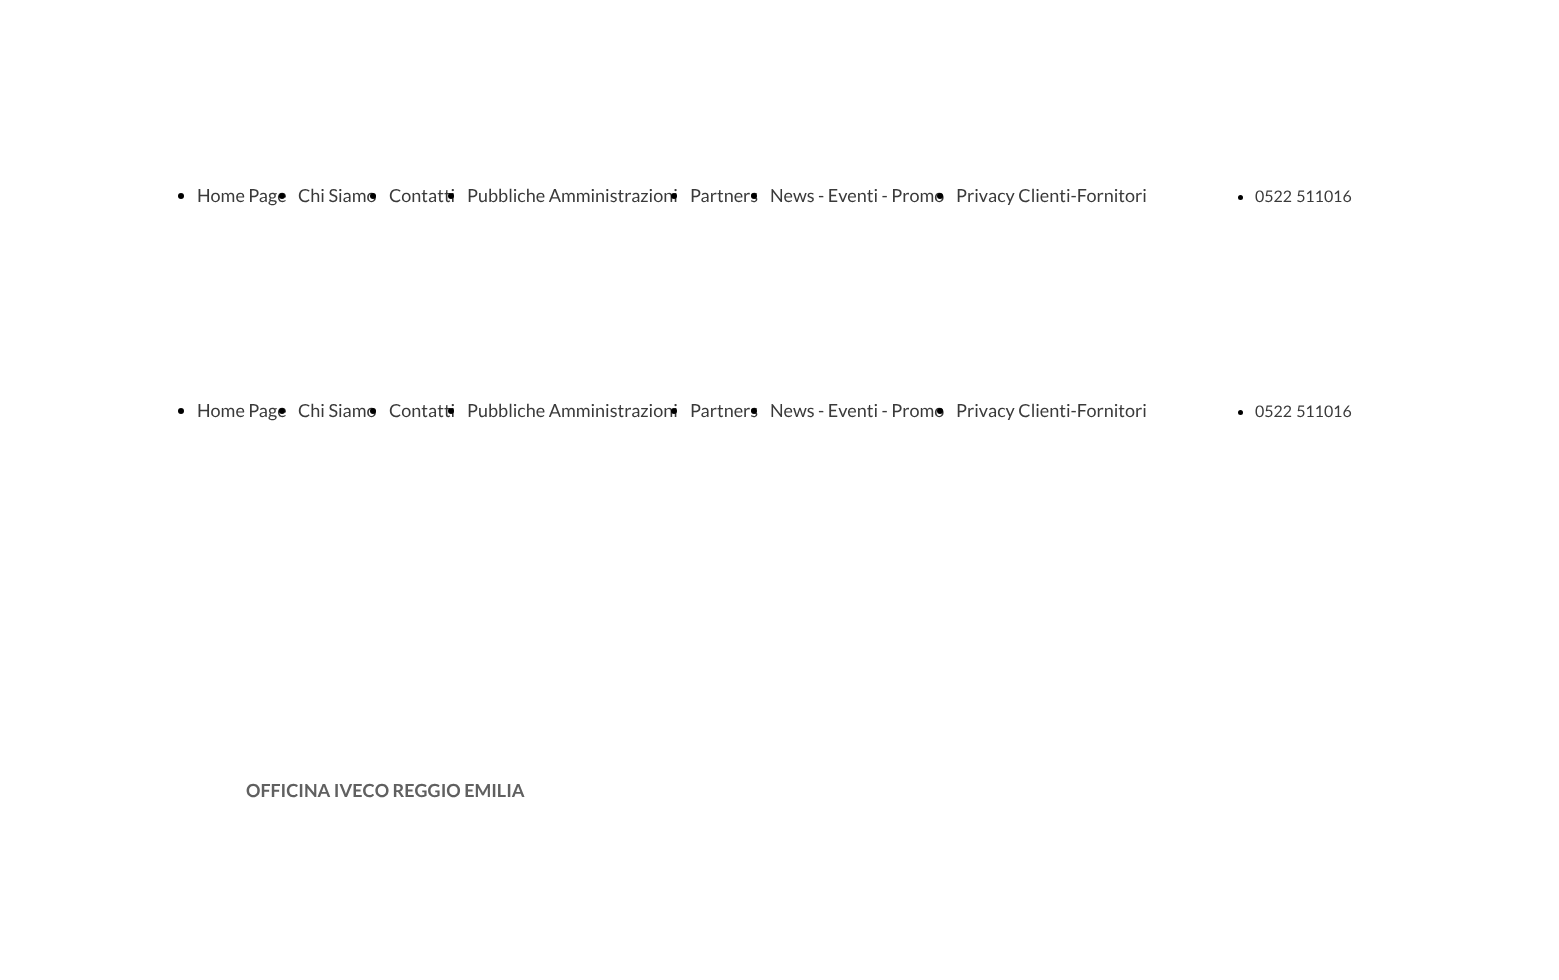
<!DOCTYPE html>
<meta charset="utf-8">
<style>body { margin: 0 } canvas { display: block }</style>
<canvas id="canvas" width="1559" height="980"></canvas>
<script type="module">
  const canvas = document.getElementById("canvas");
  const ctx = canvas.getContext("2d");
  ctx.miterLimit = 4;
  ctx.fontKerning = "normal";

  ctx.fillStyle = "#ffffff";
  ctx.fillRect(0, 0, 1559, 980);
  ctx.fillStyle = "#000000";
  ctx.beginPath();
  ctx.arc(181, 196, 3, 0, Math.PI * 2);
  ctx.fill();
  ctx.font = "18px 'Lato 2'";
  ctx.fillStyle = "#3a3a3a";
  ctx.fillText("Home Page", 197, 202);
  ctx.fillStyle = "#000000";
  ctx.beginPath();
  ctx.arc(282, 196, 3, 0, Math.PI * 2);
  ctx.fill();
  ctx.fillStyle = "#3a3a3a";
  ctx.fillText("Chi Siamo", 298, 202);
  ctx.fillStyle = "#000000";
  ctx.beginPath();
  ctx.arc(373, 196, 3, 0, Math.PI * 2);
  ctx.fill();
  ctx.fillStyle = "#3a3a3a";
  ctx.fillText("Contatti", 389, 202);
  ctx.fillStyle = "#000000";
  ctx.beginPath();
  ctx.arc(451, 196, 3, 0, Math.PI * 2);
  ctx.fill();
  ctx.fillStyle = "#3a3a3a";
  ctx.fillText("Pubbliche Amministrazioni", 467, 202);
  ctx.fillStyle = "#000000";
  ctx.beginPath();
  ctx.arc(674, 196, 3, 0, Math.PI * 2);
  ctx.fill();
  ctx.fillStyle = "#3a3a3a";
  ctx.fillText("Partners", 690, 202);
  ctx.fillStyle = "#000000";
  ctx.beginPath();
  ctx.arc(754, 196, 3, 0, Math.PI * 2);
  ctx.fill();
  ctx.fillStyle = "#3a3a3a";
  ctx.fillText("News - Eventi - Promo", 770, 202);
  ctx.fillStyle = "#000000";
  ctx.beginPath();
  ctx.arc(940, 196, 3, 0, Math.PI * 2);
  ctx.fill();
  ctx.fillStyle = "#3a3a3a";
  ctx.fillText("Privacy Clienti-Fornitori", 956, 202);
  ctx.fillStyle = "#000000";
  ctx.beginPath();
  ctx.arc(1240.5, 197.5, 2.5, 0, Math.PI * 2);
  ctx.fill();
  ctx.font = "16px Lato";
  ctx.fillStyle = "#3a3a3a";
  ctx.fillText("0522 511016", 1255, 202);
  ctx.fillStyle = "#000000";
  ctx.beginPath();
  ctx.arc(181, 411, 3, 0, Math.PI * 2);
  ctx.fill();
  ctx.font = "18px 'Lato 2'";
  ctx.fillStyle = "#3a3a3a";
  ctx.fillText("Home Page", 197, 417);
  ctx.fillStyle = "#000000";
  ctx.beginPath();
  ctx.arc(282, 411, 3, 0, Math.PI * 2);
  ctx.fill();
  ctx.fillStyle = "#3a3a3a";
  ctx.fillText("Chi Siamo", 298, 417);
  ctx.fillStyle = "#000000";
  ctx.beginPath();
  ctx.arc(373, 411, 3, 0, Math.PI * 2);
  ctx.fill();
  ctx.fillStyle = "#3a3a3a";
  ctx.fillText("Contatti", 389, 417);
  ctx.fillStyle = "#000000";
  ctx.beginPath();
  ctx.arc(451, 411, 3, 0, Math.PI * 2);
  ctx.fill();
  ctx.fillStyle = "#3a3a3a";
  ctx.fillText("Pubbliche Amministrazioni", 467, 417);
  ctx.fillStyle = "#000000";
  ctx.beginPath();
  ctx.arc(674, 411, 3, 0, Math.PI * 2);
  ctx.fill();
  ctx.fillStyle = "#3a3a3a";
  ctx.fillText("Partners", 690, 417);
  ctx.fillStyle = "#000000";
  ctx.beginPath();
  ctx.arc(754, 411, 3, 0, Math.PI * 2);
  ctx.fill();
  ctx.fillStyle = "#3a3a3a";
  ctx.fillText("News - Eventi - Promo", 770, 417);
  ctx.fillStyle = "#000000";
  ctx.beginPath();
  ctx.arc(940, 411, 3, 0, Math.PI * 2);
  ctx.fill();
  ctx.fillStyle = "#3a3a3a";
  ctx.fillText("Privacy Clienti-Fornitori", 956, 417);
  ctx.fillStyle = "#000000";
  ctx.beginPath();
  ctx.arc(1240.5, 412.5, 2.5, 0, Math.PI * 2);
  ctx.fill();
  ctx.font = "16px Lato";
  ctx.fillStyle = "#3a3a3a";
  ctx.fillText("0522 511016", 1255, 417);
  ctx.font = "bold 18px Lato";
  ctx.fillStyle = "#606060";
  ctx.fillText("OFFICINA IVECO REGGIO EMILIA", 246, 797);
</script>
